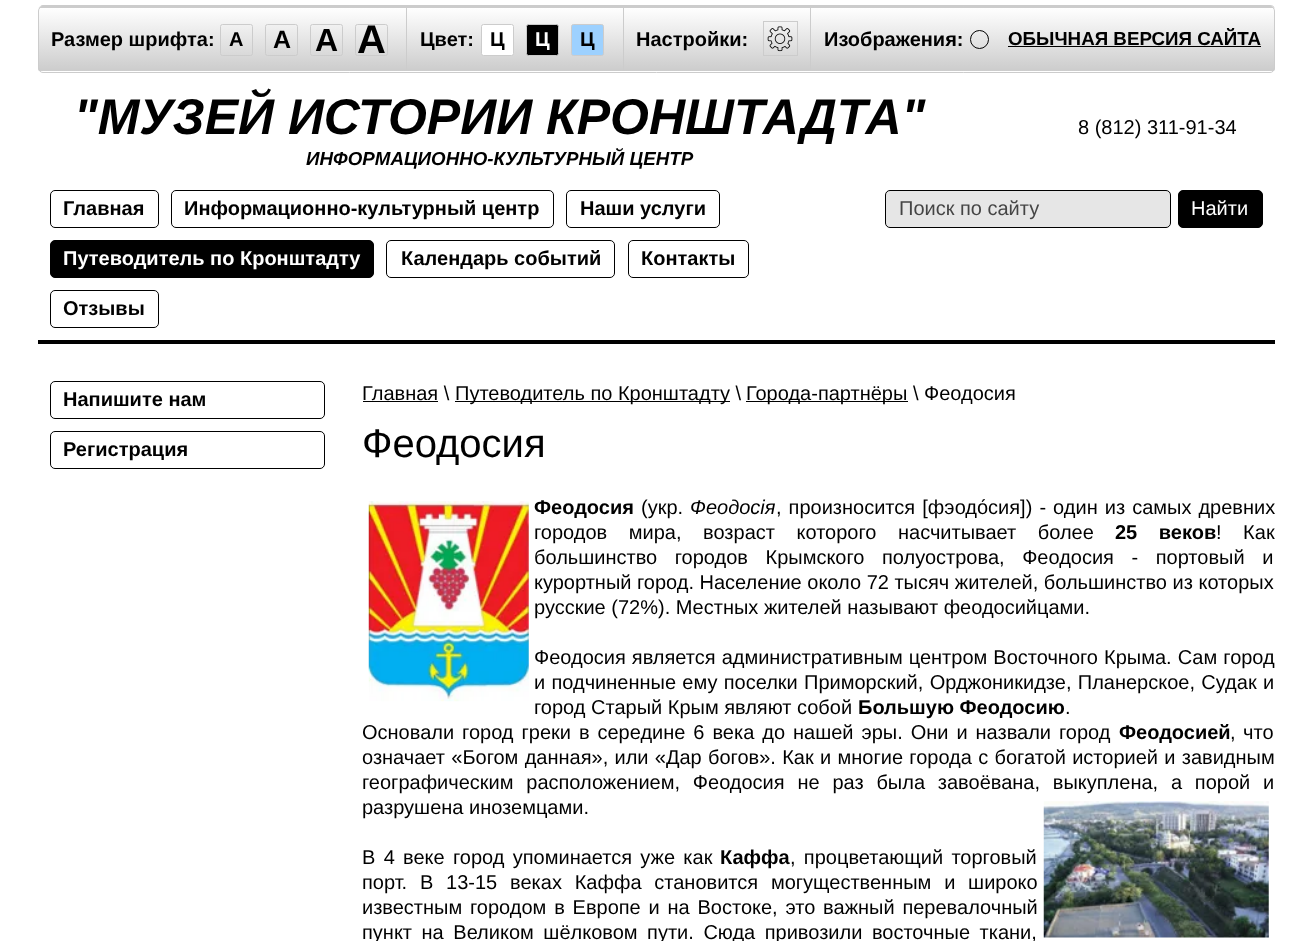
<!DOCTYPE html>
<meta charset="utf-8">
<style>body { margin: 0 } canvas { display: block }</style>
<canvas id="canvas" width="1311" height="941"></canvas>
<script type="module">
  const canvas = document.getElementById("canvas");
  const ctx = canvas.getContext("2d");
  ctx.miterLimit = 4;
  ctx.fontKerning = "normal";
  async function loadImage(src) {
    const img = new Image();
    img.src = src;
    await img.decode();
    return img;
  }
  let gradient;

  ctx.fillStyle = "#ffffff";
  ctx.fillRect(0, 0, 1311, 941);
  ctx.fillStyle = "#000000";
  ctx.fillRect(38, 340, 1237, 4);
  ctx.fillStyle = "#cccccc";
  ctx.beginPath();
  ctx.moveTo(43, 5);
  ctx.bezierCurveTo(41, 5, 39, 7, 38, 9);
  ctx.bezierCurveTo(39, 7, 41, 6, 42, 6);
  ctx.lineTo(1270, 6);
  ctx.bezierCurveTo(1273, 6, 1275, 8, 1275, 11);
  ctx.bezierCurveTo(1275, 8, 1274, 5, 1270, 5);
  ctx.closePath();
  ctx.fill();
  ctx.save();
  ctx.beginPath();
  ctx.roundRect(38, 6, 1237, 67, 5);
  ctx.clip();
  gradient = ctx.createLinearGradient(656, -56, 656, 7.5);
  gradient.addColorStop(0, "#ffffff");
  gradient.addColorStop(1, "#cccccc");
  ctx.fillStyle = gradient;
  ctx.fillRect(38, 6, 1237, 2);
  gradient = ctx.createLinearGradient(656, 7.5, 656, 71);
  gradient.addColorStop(0, "#ffffff");
  gradient.addColorStop(1, "#cccccc");
  ctx.fillStyle = gradient;
  ctx.fillRect(38, 8, 1237, 63);
  ctx.restore();
  ctx.beginPath();
  ctx.roundRect(38.5, 6.5, 1236, 66, 4.5);
  ctx.strokeStyle = "#cccccc";
  ctx.stroke();
  ctx.fillRect(406, 8, 1, 63);
  ctx.font = "bold 20px Liberation Sans";
  ctx.fillStyle = "#000000";
  ctx.fillText("Размер шрифта:", 51, 46);
  ctx.beginPath();
  ctx.roundRect(220.5, 24.5, 32, 31, 2);
  ctx.stroke();
  ctx.fillText("A", 229, 46);
  ctx.beginPath();
  ctx.roundRect(265.5, 24.5, 32, 31, 2);
  ctx.stroke();
  ctx.font = "bold 25px Liberation Sans";
  ctx.fillText("A", 273, 48);
  ctx.beginPath();
  ctx.roundRect(310.5, 24.5, 32, 31, 2);
  ctx.stroke();
  ctx.font = "bold 32px Liberation Sans";
  ctx.fillText("A", 315, 51);
  ctx.beginPath();
  ctx.roundRect(355.5, 24.5, 32, 31, 2);
  ctx.stroke();
  ctx.font = "bold 40px Liberation Sans";
  ctx.fillText("A", 357, 53);
  ctx.fillStyle = "#cccccc";
  ctx.fillRect(623, 8, 1, 63);
  ctx.font = "bold 20px Liberation Sans";
  ctx.fillStyle = "#000000";
  ctx.fillText("Цвет:", 420, 46);
  ctx.fillStyle = "#ffffff";
  ctx.beginPath();
  ctx.roundRect(481.5, 24.5, 32, 31, 2);
  ctx.fill();
  ctx.stroke();
  ctx.fillStyle = "#000000";
  ctx.fillText("Ц", 490, 46);
  ctx.beginPath();
  ctx.roundRect(526.5, 24.5, 32, 31, 2);
  ctx.fill();
  ctx.stroke();
  ctx.fillStyle = "#ffffff";
  ctx.fillText("Ц", 535, 46);
  ctx.fillStyle = "#9dd1ff";
  ctx.beginPath();
  ctx.roundRect(571.5, 24.5, 32, 31, 2);
  ctx.fill();
  ctx.stroke();
  ctx.fillStyle = "#000000";
  ctx.fillText("Ц", 580, 46);
  ctx.fillText("Настройки:", 636, 46);
  ctx.strokeRect(763.5, 21.5, 34, 34);
  ctx.drawImage(await loadImage("img1.png"), 767, 26, 26, 26);
  ctx.fillStyle = "#cccccc";
  ctx.fillRect(810, 8, 1, 63);
  ctx.fillStyle = "#000000";
  ctx.fillText("Изображения:", 824, 46);
  ctx.beginPath();
  ctx.arc(979.5, 39.5, 9, 0, Math.PI * 2);
  ctx.strokeStyle = "#000000";
  ctx.stroke();
  ctx.font = "bold 18.75px Liberation Sans";
  ctx.fillText("ОБЫЧНАЯ ВЕРСИЯ САЙТА", 1008, 45);
  ctx.fillRect(1008, 46, 253, 1);
  ctx.font = "italic bold 50px Liberation Sans";
  ctx.fillText("\"МУЗЕЙ ИСТОРИИ КРОНШТАДТА\"", 74, 134);
  ctx.font = "italic bold 18.75px Liberation Sans";
  ctx.fillText("ИНФОРМАЦИОННО-КУЛЬТУРНЫЙ ЦЕНТР", 306, 165);
  ctx.font = "20px Liberation Sans";
  ctx.fillText("8 (812) 311-91-34", 1078, 134);
  ctx.beginPath();
  ctx.roundRect(50.5, 190.5, 108, 37, 4.5);
  ctx.stroke();
  ctx.font = "bold 20px Liberation Sans";
  ctx.fillText("Главная", 63, 215);
  ctx.beginPath();
  ctx.roundRect(171.5, 190.5, 382, 37, 4.5);
  ctx.stroke();
  ctx.fillText("Информационно-культурный центр", 184, 215);
  ctx.beginPath();
  ctx.roundRect(566.5, 190.5, 153, 37, 4.5);
  ctx.stroke();
  ctx.fillText("Наши услуги", 580, 215);
  ctx.beginPath();
  ctx.roundRect(50.5, 240.5, 323, 37, 4.5);
  ctx.fill();
  ctx.stroke();
  ctx.fillStyle = "#ffffff";
  ctx.fillText("Путеводитель по Кронштадту", 63, 265);
  ctx.beginPath();
  ctx.roundRect(386.5, 240.5, 228, 37, 4.5);
  ctx.stroke();
  ctx.fillStyle = "#000000";
  ctx.fillText("Календарь событий", 401, 265);
  ctx.beginPath();
  ctx.roundRect(628.5, 240.5, 120, 37, 4.5);
  ctx.stroke();
  ctx.fillText("Контакты", 641, 265);
  ctx.beginPath();
  ctx.roundRect(50.5, 290.5, 108, 37, 4.5);
  ctx.stroke();
  ctx.fillText("Отзывы", 63, 315);
  ctx.fillStyle = "#e6e6e6";
  ctx.beginPath();
  ctx.roundRect(885.5, 190.5, 285, 37, 4.5);
  ctx.fill();
  ctx.stroke();
  ctx.font = "20px Liberation Sans";
  ctx.fillStyle = "#454545";
  ctx.fillText("Поиск по сайту", 899, 215);
  ctx.fillStyle = "#000000";
  ctx.beginPath();
  ctx.roundRect(1178.5, 190.5, 84, 37, 4.5);
  ctx.fill();
  ctx.stroke();
  ctx.fillStyle = "#ffffff";
  ctx.fillText("Найти", 1191, 215);
  ctx.beginPath();
  ctx.roundRect(50.5, 381.5, 274, 37, 4.5);
  ctx.stroke();
  ctx.font = "bold 20px Liberation Sans";
  ctx.fillStyle = "#000000";
  ctx.fillText("Напишите нам", 63, 406);
  ctx.beginPath();
  ctx.roundRect(50.5, 431.5, 274, 37, 4.5);
  ctx.stroke();
  ctx.fillText("Регистрация", 63, 456);
  ctx.font = "20px Liberation Sans";
  ctx.fillText("Главная \\", 362, 400);
  ctx.fillRect(363, 401, 75, 1);
  ctx.fillRect(455, 401, 275, 1);
  ctx.fillText("Путеводитель по Кронштадту \\", 455, 400);
  ctx.fillRect(746, 401, 162, 1);
  ctx.fillText("Города-партнёры \\ Феодосия", 746, 400);
  ctx.font = "40px Liberation Sans";
  ctx.fillText("Феодосия", 362, 457);
  ctx.drawImage(await loadImage("img2.png"), 368, 501, 161, 201);
  ctx.font = "bold 20px Liberation Sans";
  ctx.fillText("Феодосия", 534, 514);
  ctx.font = "20px Liberation Sans";
  ctx.fillText("(укр.", 641, 514);
  ctx.font = "italic 20px Liberation Sans";
  ctx.fillText("Феодосія", 690, 514);
  ctx.wordSpacing = "1.5px";
  ctx.font = "20px Liberation Sans";
  ctx.fillText(", произносится [фэодо́сия]) - один из самых древних", 776, 514);
  ctx.wordSpacing = "16px";
  ctx.fillText("городов мира, возраст которого насчитывает более", 534, 539);
  ctx.font = "bold 20px Liberation Sans";
  ctx.fillText("25 веков", 1115, 539);
  ctx.font = "20px Liberation Sans";
  ctx.fillText("! Как", 1216, 539);
  ctx.wordSpacing = "12px";
  ctx.fillText("большинство городов Крымского полуострова, Феодосия - портовый и", 534, 564);
  ctx.wordSpacing = "0px";
  ctx.fillText("курортный город. Население около 72 тысяч жителей, большинство из которых", 534, 589);
  ctx.fillText("русские (72%). Местных жителей называют феодосийцами.", 534, 614);
  ctx.wordSpacing = "0.5px";
  ctx.fillText("Феодосия является административным центром Восточного Крыма. Сам город", 534, 664);
  ctx.wordSpacing = "0.75px";
  ctx.fillText("и подчиненные ему поселки Приморский, Орджоникидзе, Планерское, Судак и", 534, 689);
  ctx.wordSpacing = "0px";
  ctx.fillText("город Старый Крым являют собой", 534, 714);
  ctx.font = "bold 20px Liberation Sans";
  ctx.fillText("Большую Феодосию", 858, 714);
  ctx.font = "20px Liberation Sans";
  ctx.fillText(".", 1065, 714);
  ctx.wordSpacing = "2.4px";
  ctx.fillText("Основали город греки в середине 6 века до нашей эры. Они и назвали город", 362, 739);
  ctx.wordSpacing = "0px";
  ctx.font = "bold 20px Liberation Sans";
  ctx.fillText("Феодосией", 1119, 739);
  ctx.wordSpacing = "2px";
  ctx.font = "20px Liberation Sans";
  ctx.fillText(", что", 1230, 739);
  ctx.wordSpacing = "0.75px";
  ctx.fillText("означает «Богом данная», или «Дар богов». Как и многие города с богатой историей и завидным", 362, 764);
  ctx.wordSpacing = "7.25px";
  ctx.fillText("географическим расположением, Феодосия не раз была завоёвана, выкуплена, а порой и", 362, 789);
  ctx.wordSpacing = "0px";
  ctx.fillText("разрушена иноземцами.", 362, 814);
  ctx.drawImage(await loadImage("img3.png"), 1043, 801, 226, 137);
  ctx.wordSpacing = "2.75px";
  ctx.fillText("В 4 веке город упоминается уже как", 362, 864);
  ctx.wordSpacing = "0px";
  ctx.font = "bold 20px Liberation Sans";
  ctx.fillText("Каффа", 720, 864);
  ctx.wordSpacing = "2.75px";
  ctx.font = "20px Liberation Sans";
  ctx.fillText(", процветающий торговый", 790, 864);
  ctx.wordSpacing = "7.25px";
  ctx.fillText("порт. В 13-15 веках Каффа становится могущественным и широко", 362, 889);
  ctx.wordSpacing = "2.25px";
  ctx.fillText("известным городом в Европе и на Востоке, это важный перевалочный", 362, 914);
  ctx.wordSpacing = "4px";
  ctx.fillText("пункт на Великом шёлковом пути. Сюда привозили восточные ткани,", 362, 939);
</script>
